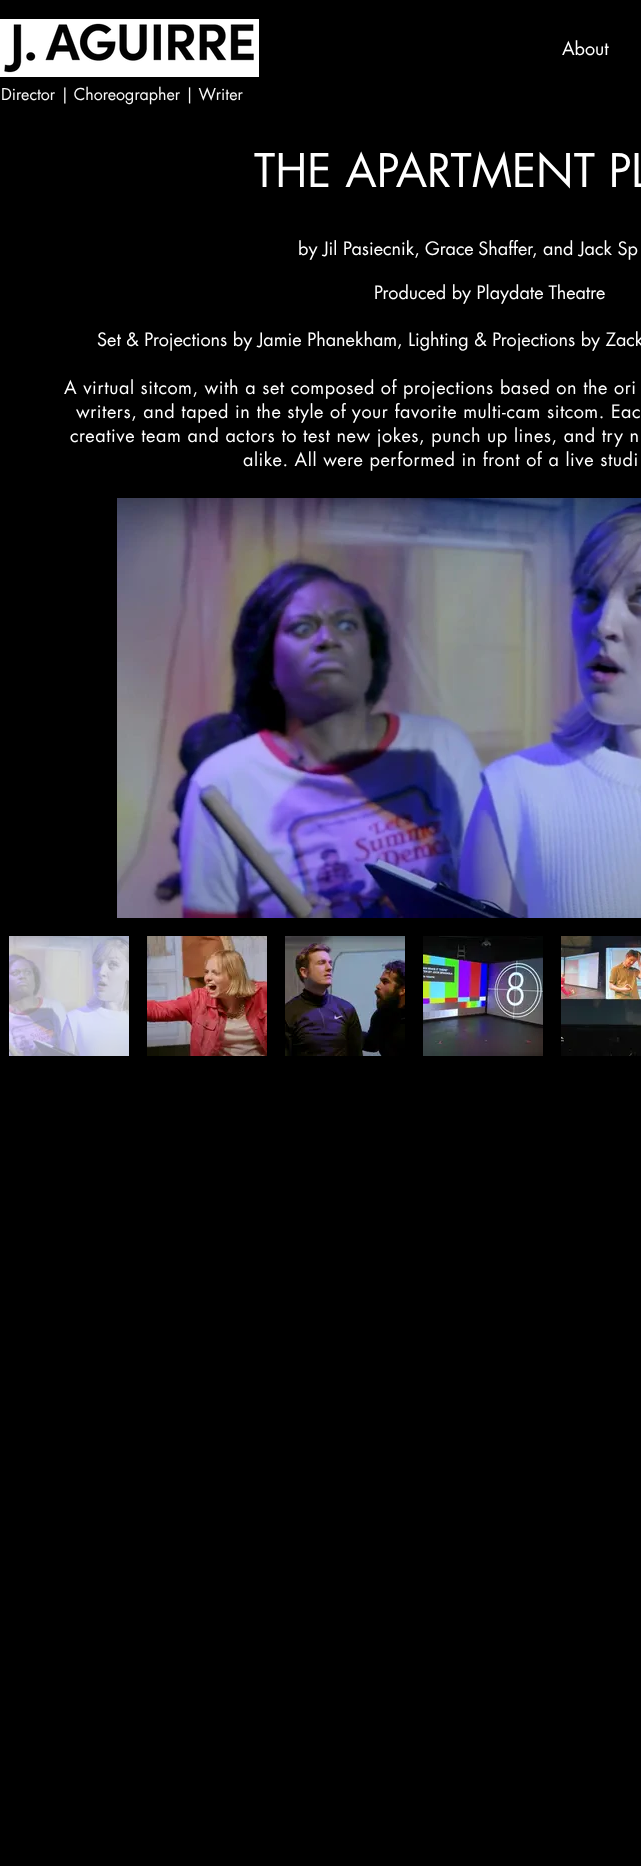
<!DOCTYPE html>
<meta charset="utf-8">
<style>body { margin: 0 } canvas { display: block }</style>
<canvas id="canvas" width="641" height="1866"></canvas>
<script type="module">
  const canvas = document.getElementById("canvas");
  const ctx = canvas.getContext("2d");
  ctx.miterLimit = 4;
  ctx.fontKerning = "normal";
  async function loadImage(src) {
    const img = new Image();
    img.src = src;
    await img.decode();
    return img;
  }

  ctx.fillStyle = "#000000";
  ctx.fillRect(0, 0, 641, 1866);
  ctx.fillStyle = "#ffffff";
  ctx.fillRect(0, 19, 259, 58);
  ctx.drawImage(await loadImage("img1.png"), 4, 23, 250, 50);
  ctx.font = "18px futura";
  ctx.fillText("About", 562, 55);
  ctx.font = "16px futura";
  ctx.fillStyle = "#f7f7f7";
  ctx.fillText("Director | Choreographer | Writer", 1, 100);
  ctx.font = "45px futura";
  ctx.fillStyle = "#ffffff";
  ctx.fillText("THE APARTMENT PL", 254, 187);
  ctx.font = "18px futura";
  ctx.fillText("by Jil Pasiecnik,", 298, 255);
  ctx.wordSpacing = "-1px";
  ctx.fillText("Grace Shaffer", 425, 255);
  ctx.wordSpacing = "0px";
  ctx.fillText(", and Jack Sp", 532, 255);
  ctx.fillText("Produced by Playdate Theatre", 374, 299);
  ctx.fillText("Set & Projections by Jamie Phanekham, Lighting & Projections by Zack", 97, 346);
  ctx.letterSpacing = "0.55px";
  ctx.fillText("A virtual sitcom, with a set composed of projections based on the ori", 64, 394);
  ctx.fillText("writers, and taped in the style of your favorite multi-cam sitcom. Eac", 76, 418);
  ctx.fillText("creative team and actors to test new jokes, punch up lines, and try n", 70, 442);
  ctx.fillText("alike. All were performed in front of a live studi", 243, 466);
  ctx.drawImage(await loadImage("img2.png"), 117, 498, 524, 420);
  ctx.drawImage(await loadImage("img3.png"), 9, 936, 120, 120);
  ctx.drawImage(await loadImage("img4.png"), 147, 936, 120, 120);
  ctx.drawImage(await loadImage("img5.png"), 285, 936, 120, 120);
  ctx.drawImage(await loadImage("img6.png"), 423, 936, 120, 120);
  ctx.drawImage(await loadImage("img7.png"), 561, 936, 80, 120);
</script>
